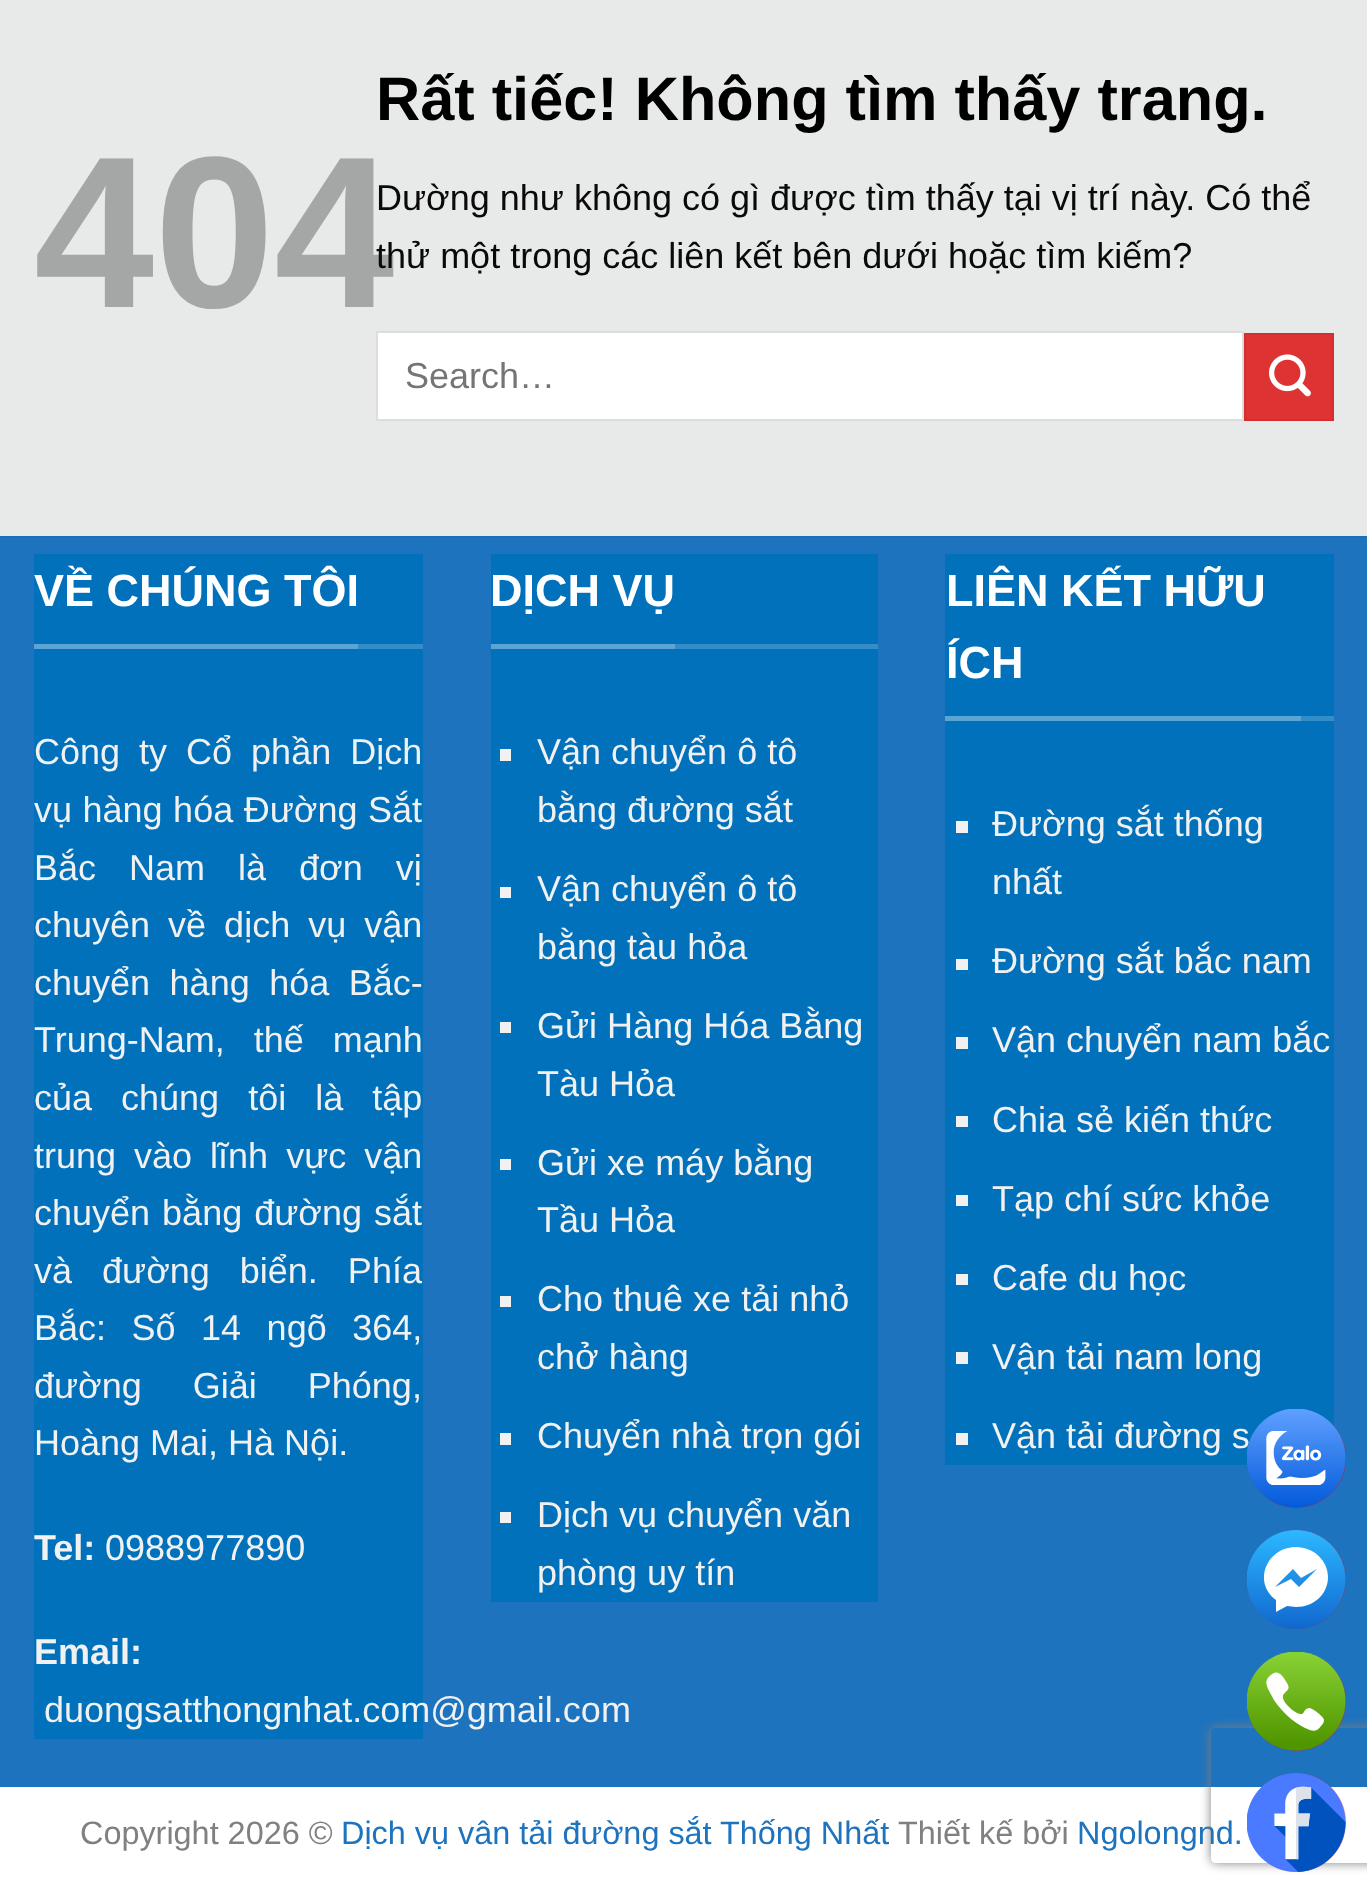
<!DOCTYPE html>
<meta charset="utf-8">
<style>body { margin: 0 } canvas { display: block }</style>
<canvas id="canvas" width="1367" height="1894"></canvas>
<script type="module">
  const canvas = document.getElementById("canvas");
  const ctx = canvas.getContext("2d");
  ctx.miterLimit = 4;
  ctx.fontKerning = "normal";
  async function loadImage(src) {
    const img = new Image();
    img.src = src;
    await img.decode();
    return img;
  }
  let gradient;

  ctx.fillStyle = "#ffffff";
  ctx.fillRect(0, 0, 1367, 1894);
  ctx.fillStyle = "#e8e9e9";
  ctx.fillRect(0, 0, 1367, 536);
  ctx.font = "bold 216px Liberation Sans";
  ctx.fillStyle = "#a5a6a6";
  ctx.fillText("404", 34, 307);
  ctx.font = "bold 61.25px Liberation Sans";
  ctx.fillStyle = "#000000";
  ctx.fillText("Rất tiếc! Không tìm thấy trang.", 376, 120);
  ctx.font = "36px Liberation Sans";
  ctx.fillStyle = "#0a0a0a";
  ctx.fillText("Dường như không có gì được tìm thấy tại vị trí này. Có thể", 376, 210);
  ctx.fillText("thử một trong các liên kết bên dưới hoặc tìm kiếm?", 376, 268);
  ctx.fillStyle = "#ffffff";
  ctx.beginPath();
  ctx.rect(377, 332, 866, 88);
  ctx.fill();
  ctx.strokeStyle = "#dddddd";
  ctx.lineWidth = 2;
  ctx.stroke();
  ctx.fillStyle = "#757575";
  ctx.fillText("Search…", 405, 388);
  ctx.fillStyle = "#dd3333";
  ctx.beginPath();
  ctx.rect(1245, 334, 88, 86);
  ctx.fill();
  ctx.strokeStyle = "#d23030";
  ctx.stroke();
  ctx.drawImage(await loadImage("img1.png"), 1269, 354, 42, 43);
  ctx.fillStyle = "#1e73be";
  ctx.fillRect(0, 538, 1367, 1249);
  ctx.fillStyle = "#1d6db5";
  ctx.fillRect(0, 536, 1367, 2);
  ctx.fillStyle = "#0071ba";
  ctx.fillRect(34, 554, 389, 1185);
  ctx.fillStyle = "#338dc8";
  ctx.fillRect(358, 644, 65, 5);
  ctx.fillStyle = "#5ca4d3";
  ctx.fillRect(34, 644, 324, 5);
  ctx.font = "bold 45px Liberation Sans";
  ctx.fillStyle = "#ffffff";
  ctx.fillText("VỀ CHÚNG TÔI", 34, 606);
  ctx.wordSpacing = "9px";
  ctx.font = "36px Liberation Sans";
  ctx.fillStyle = "#f1f1f1";
  ctx.fillText("Công ty Cổ phần Dịch", 34, 764);
  ctx.wordSpacing = "0.5px";
  ctx.fillText("vụ hàng hóa Đường Sắt", 34, 822);
  ctx.wordSpacing = "23px";
  ctx.fillText("Bắc Nam là đơn vị", 34, 880);
  ctx.wordSpacing = "8px";
  ctx.fillText("chuyên về dịch vụ vận", 34, 937);
  ctx.wordSpacing = "9.5px";
  ctx.fillText("chuyển hàng hóa Bắc-", 34, 995);
  ctx.wordSpacing = "19px";
  ctx.fillText("Trung-Nam, thế mạnh", 34, 1052);
  ctx.fillText("của chúng tôi là tập", 34, 1110);
  ctx.wordSpacing = "8px";
  ctx.fillText("trung vào lĩnh vực vận", 34, 1168);
  ctx.wordSpacing = "2px";
  ctx.fillText("chuyển bằng đường sắt", 34, 1225);
  ctx.wordSpacing = "20px";
  ctx.fillText("và đường biển. Phía", 34, 1283);
  ctx.wordSpacing = "15.5px";
  ctx.fillText("Bắc: Số 14 ngõ 364,", 34, 1340);
  ctx.wordSpacing = "41px";
  ctx.fillText("đường Giải Phóng,", 34, 1398);
  ctx.wordSpacing = "0px";
  ctx.fillText("Hoàng Mai, Hà Nội.", 34, 1455);
  ctx.font = "bold 36px Liberation Sans";
  ctx.fillText("Tel:", 34, 1560);
  ctx.font = "36px Liberation Sans";
  ctx.fillText("0988977890", 105, 1560);
  ctx.font = "bold 36px Liberation Sans";
  ctx.fillText("Email:", 34, 1664);
  ctx.font = "36px Liberation Sans";
  ctx.fillText("duongsatthongnhat.com@gmail.com", 44, 1722);
  ctx.fillStyle = "#0071ba";
  ctx.fillRect(491, 554, 387, 1048);
  ctx.fillStyle = "#338dc8";
  ctx.fillRect(675, 644, 203, 5);
  ctx.fillStyle = "#5ca4d3";
  ctx.fillRect(491, 644, 184, 5);
  ctx.font = "bold 45px Liberation Sans";
  ctx.fillStyle = "#ffffff";
  ctx.fillText("DỊCH VỤ", 490, 606);
  ctx.fillStyle = "#f1f1f1";
  ctx.fillRect(500, 749, 11, 12);
  ctx.font = "36px Liberation Sans";
  ctx.fillText("Vận chuyển ô tô", 537, 764);
  ctx.fillText("bằng đường sắt", 537, 822);
  ctx.fillRect(500, 887, 11, 11);
  ctx.fillText("Vận chuyển ô tô", 537, 901);
  ctx.fillText("bằng tàu hỏa", 537, 959);
  ctx.fillRect(500, 1022, 11, 11);
  ctx.fillText("Gửi Hàng Hóa Bằng", 537, 1038);
  ctx.fillText("Tàu Hỏa", 537, 1096);
  ctx.fillRect(500, 1159, 11, 11);
  ctx.fillText("Gửi xe máy bằng", 537, 1175);
  ctx.fillText("Tầu Hỏa", 537, 1232);
  ctx.fillRect(500, 1296, 11, 11);
  ctx.fillText("Cho thuê xe tải nhỏ", 537, 1311);
  ctx.fillText("chở hàng", 537, 1369);
  ctx.fillRect(500, 1433, 11, 12);
  ctx.fillText("Chuyển nhà trọn gói", 537, 1448);
  ctx.fillRect(500, 1512, 11, 11);
  ctx.fillText("Dịch vụ chuyển văn", 537, 1527);
  ctx.fillText("phòng uy tín", 537, 1585);
  ctx.fillStyle = "#0071ba";
  ctx.fillRect(945, 554, 389, 911);
  ctx.fillStyle = "#338dc8";
  ctx.fillRect(1301, 716, 33, 5);
  ctx.fillStyle = "#5ca4d3";
  ctx.fillRect(945, 716, 356, 5);
  ctx.font = "bold 45px Liberation Sans";
  ctx.fillStyle = "#ffffff";
  ctx.fillText("LIÊN KẾT HỮU", 946, 606);
  ctx.fillText("ÍCH", 946, 678);
  ctx.fillStyle = "#f1f1f1";
  ctx.fillRect(956, 821, 12, 12);
  ctx.font = "36px Liberation Sans";
  ctx.fillText("Đường sắt thống", 992, 836);
  ctx.fillText("nhất", 992, 894);
  ctx.fillRect(956, 959, 12, 11);
  ctx.fillText("Đường sắt bắc nam", 992, 973);
  ctx.fillRect(956, 1037, 12, 12);
  ctx.fillText("Vận chuyển nam bắc", 992, 1052);
  ctx.fillRect(956, 1116, 12, 11);
  ctx.fillText("Chia sẻ kiến thức", 992, 1132);
  ctx.fillRect(956, 1195, 12, 11);
  ctx.fillText("Tạp chí sức khỏe", 992, 1211);
  ctx.fillRect(956, 1274, 12, 11);
  ctx.fillText("Cafe du học", 992, 1290);
  ctx.fillRect(956, 1352, 12, 12);
  ctx.fillText("Vận tải nam long", 992, 1369);
  ctx.fillRect(956, 1433, 12, 12);
  ctx.fillText("Vận tải đường s", 992, 1448);
  ctx.font = "32.4px Liberation Sans";
  ctx.fillStyle = "#808080";
  ctx.fillText("Copyright 2026 ©", 80, 1844);
  ctx.fillStyle = "#1e73be";
  ctx.fillText("Dịch vụ vân tải đường sắt Thống Nhất", 341, 1844);
  ctx.fillStyle = "#808080";
  ctx.fillText("Thiết kế bởi", 898, 1844);
  ctx.fillStyle = "#1e73be";
  ctx.fillText("Ngolongnd.", 1077, 1844);
  ctx.beginPath();
  ctx.arc(1296.5, 1458.5, 48.5, 0, Math.PI * 2);
  ctx.strokeStyle = "rgba(255, 0, 0, 0.4)";
  ctx.stroke();
  ctx.drawImage(await loadImage("img2.png"), 1247, 1409, 99, 99);
  ctx.beginPath();
  ctx.arc(1296.5, 1579.5, 48.5, 0, Math.PI * 2);
  ctx.strokeStyle = "#784572";
  ctx.stroke();
  ctx.save();
  ctx.beginPath();
  ctx.rect(1247, 1530, 99, 99);
  ctx.clip();
  gradient = ctx.createLinearGradient(1295, 1628, 1295, 1531);
  gradient.addColorStop(0, "#1168cf");
  gradient.addColorStop(1, "#2cb7ff");
  ctx.fillStyle = gradient;
  ctx.beginPath();
  ctx.arc(1296, 1579.5, 49.5, 0, Math.PI * 2);
  ctx.fill();
  ctx.restore();
  ctx.fillStyle = "#ffffff";
  ctx.beginPath();
  ctx.moveTo(1296, 1547);
  ctx.bezierCurveTo(1267, 1547, 1252, 1582, 1276, 1600);
  ctx.lineTo(1276, 1612);
  ctx.lineTo(1287, 1606);
  ctx.bezierCurveTo(1290, 1606, 1293, 1607, 1296, 1607);
  ctx.bezierCurveTo(1314, 1607, 1328, 1594, 1328, 1577);
  ctx.bezierCurveTo(1328, 1561, 1314, 1547, 1296, 1547);
  ctx.closePath();
  ctx.moveTo(1299, 1587);
  ctx.lineTo(1291, 1579);
  ctx.lineTo(1275, 1587);
  ctx.lineTo(1293, 1569);
  ctx.lineTo(1301, 1578);
  ctx.lineTo(1317, 1569);
  ctx.closePath();
  ctx.fill("evenodd");
  ctx.save();
  ctx.beginPath();
  ctx.moveTo(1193, 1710);
  ctx.lineTo(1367, 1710);
  ctx.lineTo(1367, 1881);
  ctx.lineTo(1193, 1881);
  ctx.closePath();
  ctx.moveTo(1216, 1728);
  ctx.lineTo(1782, 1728);
  ctx.bezierCurveTo(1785, 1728, 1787, 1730, 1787, 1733);
  ctx.lineTo(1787, 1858);
  ctx.bezierCurveTo(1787, 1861, 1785, 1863, 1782, 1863);
  ctx.lineTo(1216, 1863);
  ctx.bezierCurveTo(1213, 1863, 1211, 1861, 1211, 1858);
  ctx.lineTo(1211, 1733);
  ctx.bezierCurveTo(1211, 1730, 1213, 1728, 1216, 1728);
  ctx.closePath();
  ctx.clip("evenodd");
  ctx.fillStyle = "#808080";
  ctx.filter = "blur(5.5px)";
  ctx.beginPath();
  ctx.roundRect(1211, 1728, 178, 135, 5);
  ctx.fill();
  ctx.filter = "none";
  ctx.restore();
  ctx.beginPath();
  ctx.arc(1296.5, 1701.5, 48.5, 0, Math.PI * 2);
  ctx.strokeStyle = "rgba(255, 0, 0, 0.4)";
  ctx.stroke();
  ctx.save();
  ctx.beginPath();
  ctx.rect(1247, 1652, 99, 99);
  ctx.clip();
  gradient = ctx.createLinearGradient(1296, 1651, 1296, 1743);
  gradient.addColorStop(0, "#8ad336");
  gradient.addColorStop(1, "#509600");
  ctx.fillStyle = gradient;
  ctx.beginPath();
  ctx.arc(1296, 1701, 49.5, 0, Math.PI * 2);
  ctx.fill();
  ctx.restore();
  ctx.beginPath();
  ctx.moveTo(1278, 1673);
  ctx.bezierCurveTo(1282, 1674, 1285, 1680, 1287, 1683);
  ctx.bezierCurveTo(1294, 1694, 1275, 1690, 1287, 1705);
  ctx.bezierCurveTo(1290, 1708, 1293, 1711, 1297, 1713);
  ctx.bezierCurveTo(1306, 1717, 1302, 1709, 1309, 1708);
  ctx.bezierCurveTo(1313, 1708, 1324, 1717, 1324, 1720);
  ctx.bezierCurveTo(1324, 1723, 1322, 1725, 1321, 1726);
  ctx.bezierCurveTo(1316, 1733, 1312, 1731, 1305, 1728);
  ctx.bezierCurveTo(1293, 1722, 1282, 1712, 1274, 1700);
  ctx.lineTo(1268, 1689);
  ctx.bezierCurveTo(1265, 1681, 1266, 1679, 1272, 1674);
  ctx.bezierCurveTo(1274, 1673, 1276, 1672, 1278, 1673);
  ctx.closePath();
  ctx.fill("evenodd");
  ctx.beginPath();
  ctx.arc(1296.5, 1822.5, 48.5, 0, Math.PI * 2);
  ctx.stroke();
  ctx.drawImage(await loadImage("img3.png"), 1247, 1773, 99, 99);
</script>
